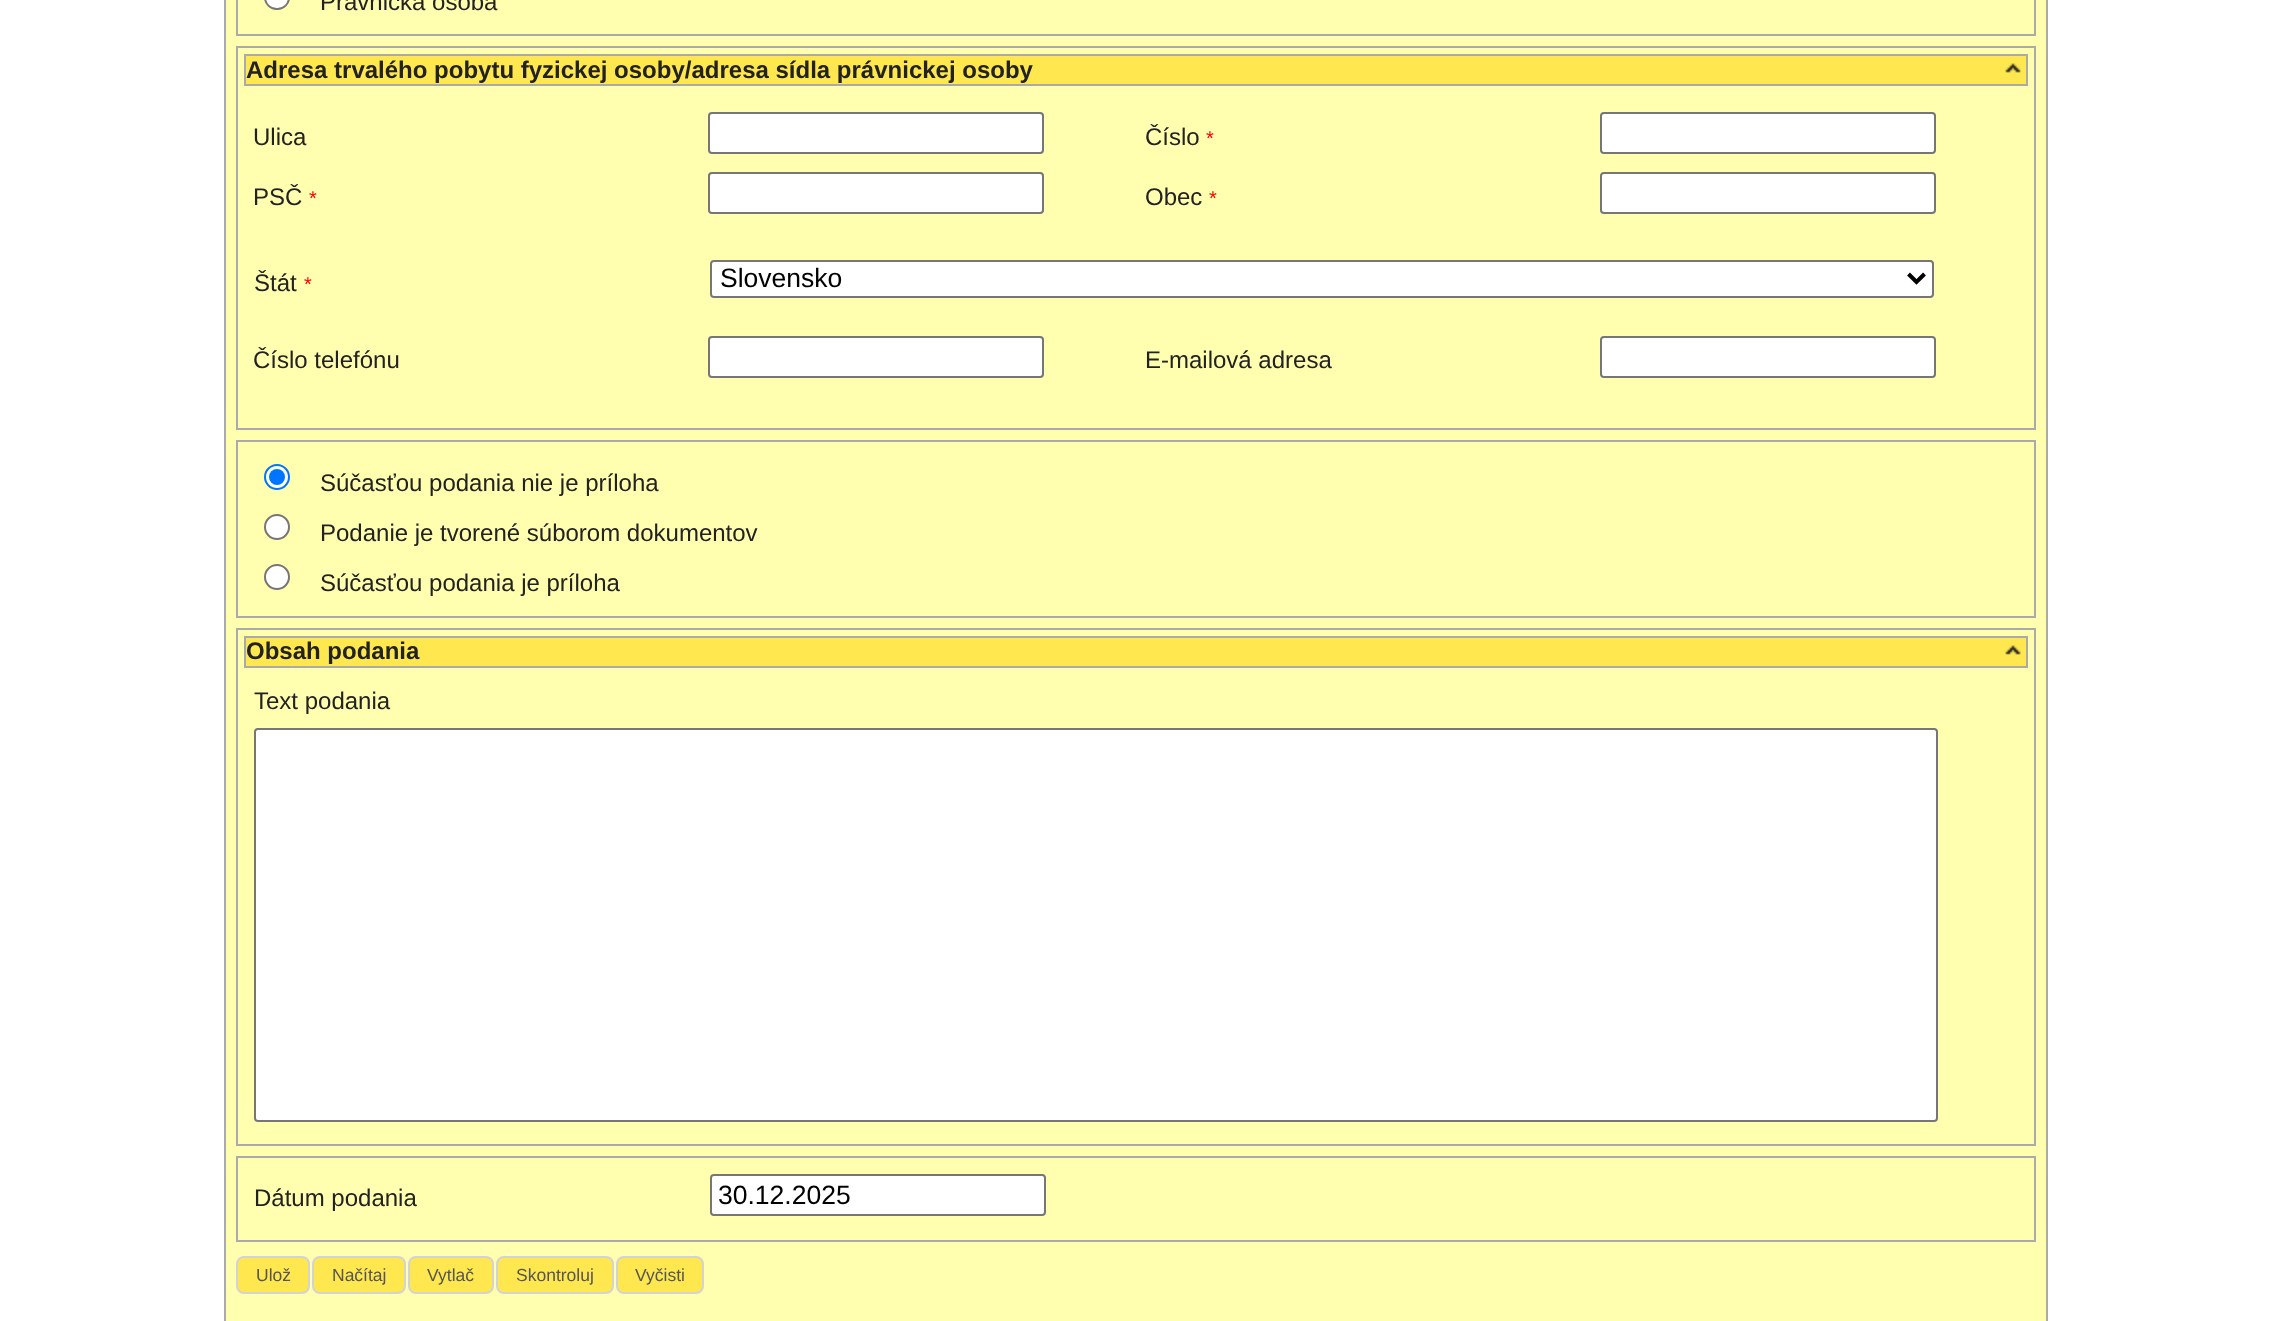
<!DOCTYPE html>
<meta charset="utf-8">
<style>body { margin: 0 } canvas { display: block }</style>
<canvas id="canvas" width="2271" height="1321"></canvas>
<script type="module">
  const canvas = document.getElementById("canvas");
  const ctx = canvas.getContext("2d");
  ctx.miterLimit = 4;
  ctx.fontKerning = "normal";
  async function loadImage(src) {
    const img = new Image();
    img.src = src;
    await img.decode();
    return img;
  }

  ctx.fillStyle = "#ffffff";
  ctx.fillRect(0, 0, 2271, 1321);
  ctx.fillStyle = "#ffffaf";
  ctx.beginPath();
  ctx.rect(225, -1, 1822, 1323);
  ctx.fill();
  ctx.strokeStyle = "#aaaaaa";
  ctx.lineWidth = 2;
  ctx.stroke();
  ctx.strokeRect(237, -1, 1798, 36);
  ctx.fillStyle = "#ffffff";
  ctx.beginPath();
  ctx.roundRect(265, -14, 24, 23, 12);
  ctx.fill();
  ctx.strokeStyle = "#767676";
  ctx.stroke();
  ctx.font = "24px Liberation Sans";
  ctx.fillStyle = "#222222";
  ctx.fillText("Právnická osoba", 320, 10);
  ctx.strokeStyle = "#aaaaaa";
  ctx.strokeRect(237, 47, 1798, 382);
  ctx.fillStyle = "#ffe74f";
  ctx.beginPath();
  ctx.rect(245, 55, 1782, 30);
  ctx.fill();
  ctx.stroke();
  ctx.font = "bold 24px Liberation Sans";
  ctx.fillStyle = "#222222";
  ctx.fillText("Adresa trvalého pobytu fyzickej osoby/adresa sídla právnickej osoby", 246, 78);
  ctx.drawImage(await loadImage("img1.png"), 2005, 63, 16, 10);
  ctx.font = "24px Liberation Sans";
  ctx.fillText("Ulica", 253, 145);
  ctx.fillStyle = "#ffffff";
  ctx.beginPath();
  ctx.roundRect(709, 113, 334, 40, 3);
  ctx.fill();
  ctx.strokeStyle = "#767676";
  ctx.stroke();
  ctx.fillStyle = "#222222";
  ctx.fillText("PSČ", 253, 205);
  ctx.font = "20px Liberation Sans";
  ctx.fillStyle = "#ff0000";
  ctx.fillText("*", 309, 205);
  ctx.fillStyle = "#ffffff";
  ctx.beginPath();
  ctx.roundRect(709, 173, 334, 40, 3);
  ctx.fill();
  ctx.stroke();
  ctx.font = "24px Liberation Sans";
  ctx.fillStyle = "#222222";
  ctx.fillText("Číslo", 1145, 145);
  ctx.font = "20px Liberation Sans";
  ctx.fillStyle = "#ff0000";
  ctx.fillText("*", 1206, 145);
  ctx.fillStyle = "#ffffff";
  ctx.beginPath();
  ctx.roundRect(1601, 113, 334, 40, 3);
  ctx.fill();
  ctx.stroke();
  ctx.font = "24px Liberation Sans";
  ctx.fillStyle = "#222222";
  ctx.fillText("Obec", 1145, 205);
  ctx.font = "20px Liberation Sans";
  ctx.fillStyle = "#ff0000";
  ctx.fillText("*", 1209, 205);
  ctx.fillStyle = "#ffffff";
  ctx.beginPath();
  ctx.roundRect(1601, 173, 334, 40, 3);
  ctx.fill();
  ctx.stroke();
  ctx.font = "24px Liberation Sans";
  ctx.fillStyle = "#222222";
  ctx.fillText("Štát", 254, 291);
  ctx.font = "20px Liberation Sans";
  ctx.fillStyle = "#ff0000";
  ctx.fillText("*", 304, 291);
  ctx.fillStyle = "#ffffff";
  ctx.beginPath();
  ctx.roundRect(711, 261, 1222, 36, 3);
  ctx.fill();
  ctx.stroke();
  ctx.beginPath();
  ctx.moveTo(1908.5, 274);
  ctx.lineTo(1916.5, 282);
  ctx.lineTo(1924.5, 274);
  ctx.strokeStyle = "#000000";
  ctx.lineWidth = 4;
  ctx.stroke();
  ctx.font = "26.5px Liberation Sans";
  ctx.fillStyle = "#000000";
  ctx.fillText("Slovensko", 720, 287);
  ctx.font = "24px Liberation Sans";
  ctx.fillStyle = "#222222";
  ctx.fillText("Číslo telefónu", 253, 368);
  ctx.fillStyle = "#ffffff";
  ctx.beginPath();
  ctx.roundRect(709, 337, 334, 40, 3);
  ctx.fill();
  ctx.strokeStyle = "#767676";
  ctx.lineWidth = 2;
  ctx.stroke();
  ctx.fillStyle = "#222222";
  ctx.fillText("E-mailová adresa", 1145, 368);
  ctx.fillStyle = "#ffffff";
  ctx.beginPath();
  ctx.roundRect(1601, 337, 334, 40, 3);
  ctx.fill();
  ctx.stroke();
  ctx.strokeStyle = "#aaaaaa";
  ctx.strokeRect(237, 441, 1798, 176);
  ctx.beginPath();
  ctx.arc(277, 477, 12, 0, Math.PI * 2);
  ctx.fill();
  ctx.strokeStyle = "#0075ff";
  ctx.stroke();
  ctx.fillStyle = "#0075ff";
  ctx.beginPath();
  ctx.arc(277, 477, 8, 0, Math.PI * 2);
  ctx.fill();
  ctx.fillStyle = "#222222";
  ctx.fillText("Súčasťou podania nie je príloha", 320, 491);
  ctx.fillStyle = "#ffffff";
  ctx.beginPath();
  ctx.arc(277, 527, 12, 0, Math.PI * 2);
  ctx.fill();
  ctx.strokeStyle = "#767676";
  ctx.stroke();
  ctx.fillStyle = "#222222";
  ctx.fillText("Podanie je tvorené súborom dokumentov", 320, 541);
  ctx.fillStyle = "#ffffff";
  ctx.beginPath();
  ctx.arc(277, 577, 12, 0, Math.PI * 2);
  ctx.fill();
  ctx.stroke();
  ctx.fillStyle = "#222222";
  ctx.fillText("Súčasťou podania je príloha", 320, 591);
  ctx.strokeStyle = "#aaaaaa";
  ctx.strokeRect(237, 629, 1798, 516);
  ctx.fillStyle = "#ffe74f";
  ctx.beginPath();
  ctx.rect(245, 637, 1782, 30);
  ctx.fill();
  ctx.stroke();
  ctx.font = "bold 24px Liberation Sans";
  ctx.fillStyle = "#222222";
  ctx.fillText("Obsah podania", 246, 659);
  ctx.drawImage(await loadImage("img1.png"), 2005, 645, 16, 10);
  ctx.font = "24px Liberation Sans";
  ctx.fillText("Text podania", 254, 709);
  ctx.fillStyle = "#ffffff";
  ctx.beginPath();
  ctx.roundRect(255, 729, 1682, 392, 3);
  ctx.fill();
  ctx.strokeStyle = "#767676";
  ctx.stroke();
  ctx.strokeStyle = "#aaaaaa";
  ctx.strokeRect(237, 1157, 1798, 84);
  ctx.fillStyle = "#222222";
  ctx.fillText("Dátum podania", 254, 1206);
  ctx.fillStyle = "#ffffff";
  ctx.beginPath();
  ctx.roundRect(711, 1175, 334, 40, 3);
  ctx.fill();
  ctx.strokeStyle = "#767676";
  ctx.stroke();
  ctx.font = "26.5px Liberation Sans";
  ctx.fillStyle = "#000000";
  ctx.fillText("30.12.2025", 718, 1204);
  ctx.fillStyle = "#ffe74f";
  ctx.beginPath();
  ctx.roundRect(237, 1257, 72, 36, 7);
  ctx.fill();
  ctx.strokeStyle = "#d3d3d3";
  ctx.stroke();
  ctx.font = "17.5px Liberation Sans";
  ctx.fillStyle = "#555555";
  ctx.fillText("Ulož", 256, 1281);
  ctx.fillStyle = "#ffe74f";
  ctx.beginPath();
  ctx.roundRect(313, 1257, 92, 36, 7);
  ctx.fill();
  ctx.stroke();
  ctx.fillStyle = "#555555";
  ctx.fillText("Načítaj", 332, 1281);
  ctx.fillStyle = "#ffe74f";
  ctx.beginPath();
  ctx.roundRect(409, 1257, 84, 36, 7);
  ctx.fill();
  ctx.stroke();
  ctx.fillStyle = "#555555";
  ctx.fillText("Vytlač", 427, 1281);
  ctx.fillStyle = "#ffe74f";
  ctx.beginPath();
  ctx.roundRect(497, 1257, 116, 36, 7);
  ctx.fill();
  ctx.stroke();
  ctx.fillStyle = "#555555";
  ctx.fillText("Skontroluj", 516, 1281);
  ctx.fillStyle = "#ffe74f";
  ctx.beginPath();
  ctx.roundRect(617, 1257, 86, 36, 7);
  ctx.fill();
  ctx.stroke();
  ctx.fillStyle = "#555555";
  ctx.fillText("Vyčisti", 635, 1281);
</script>
